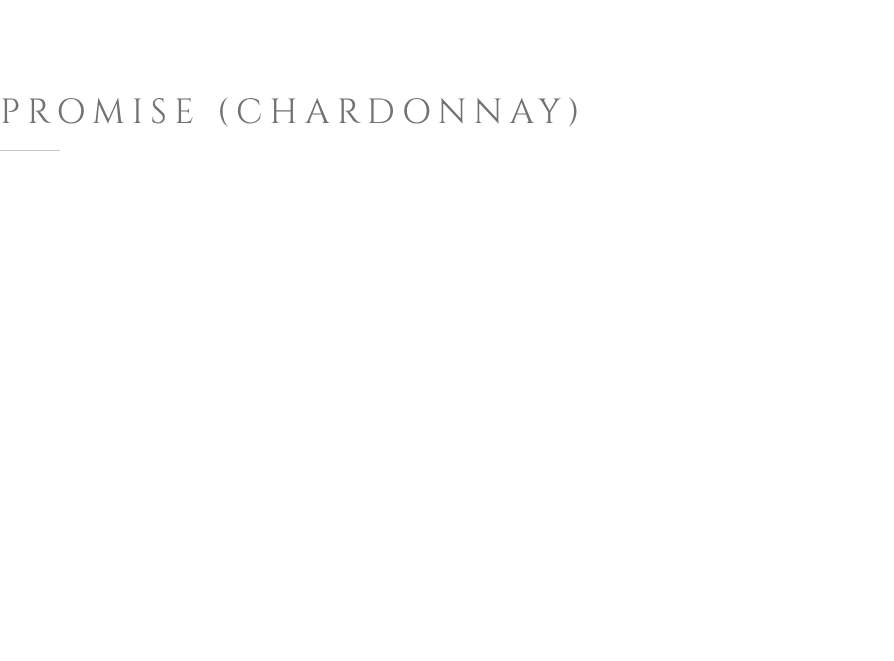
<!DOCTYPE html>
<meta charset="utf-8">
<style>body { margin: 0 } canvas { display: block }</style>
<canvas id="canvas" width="894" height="661"></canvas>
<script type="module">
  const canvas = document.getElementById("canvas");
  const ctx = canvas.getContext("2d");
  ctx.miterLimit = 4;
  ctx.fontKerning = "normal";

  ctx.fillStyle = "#ffffff";
  ctx.fillRect(0, 0, 894, 661);
  ctx.letterSpacing = "7px";
  ctx.font = "35px Cinzel";
  ctx.fillStyle = "#737272";
  ctx.fillText("PROMISE (CHARDONNAY)", 0, 123);
  ctx.fillStyle = "#c7c7c7";
  ctx.fillRect(0, 150, 60, 1);
</script>
